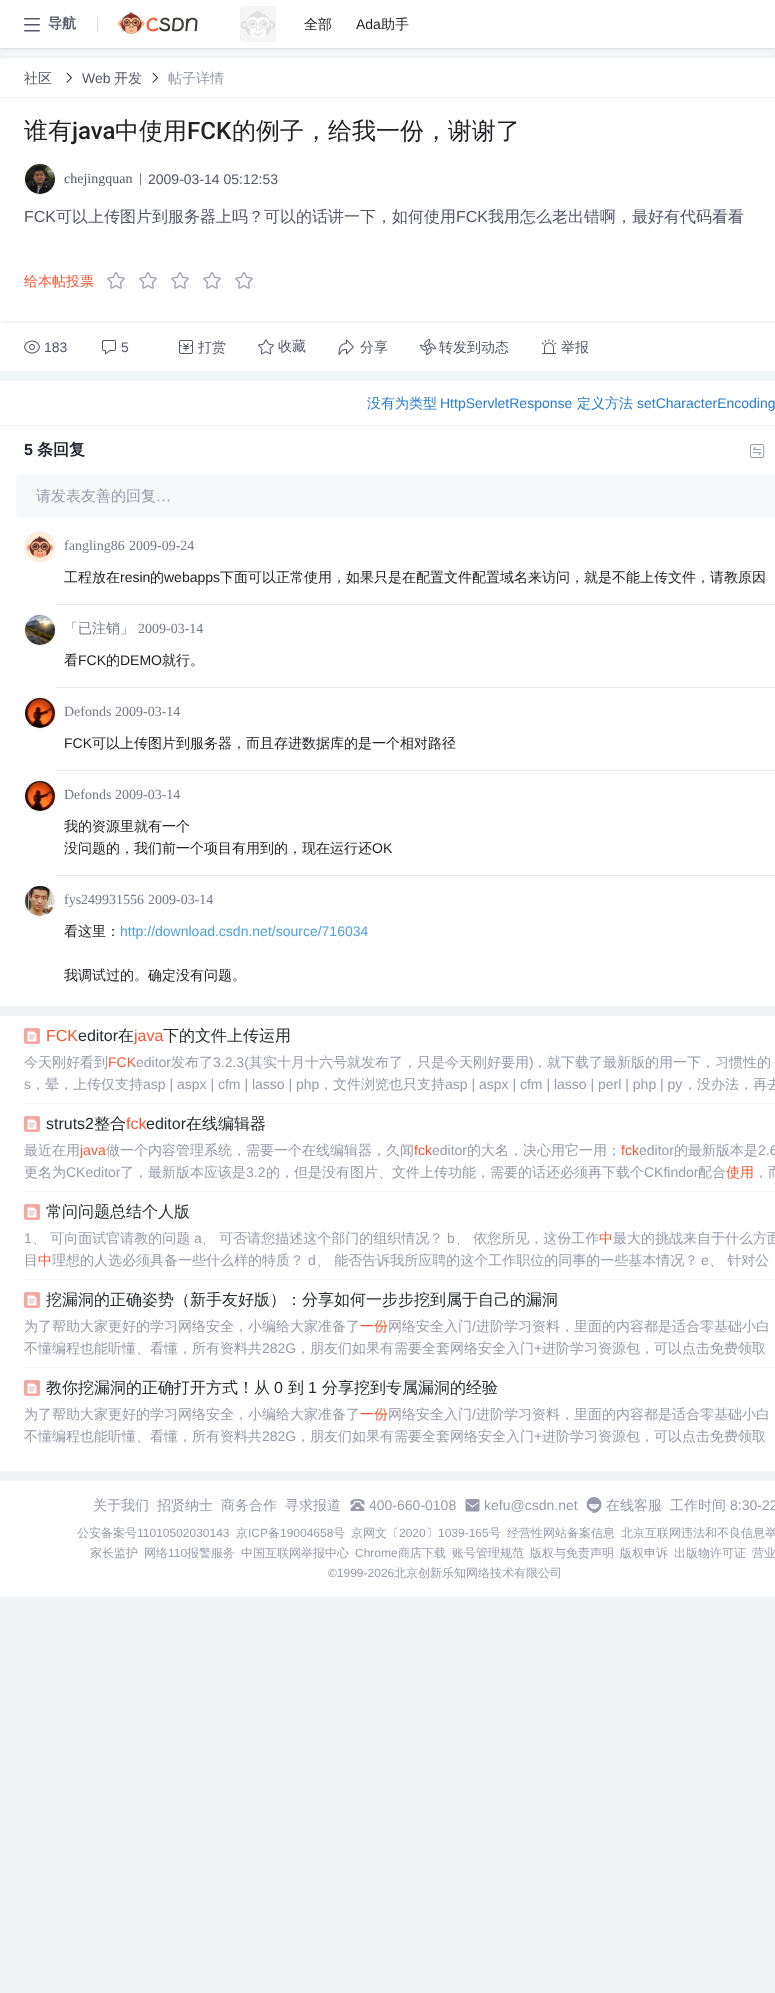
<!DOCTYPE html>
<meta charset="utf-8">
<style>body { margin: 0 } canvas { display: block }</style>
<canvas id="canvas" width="775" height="1993"></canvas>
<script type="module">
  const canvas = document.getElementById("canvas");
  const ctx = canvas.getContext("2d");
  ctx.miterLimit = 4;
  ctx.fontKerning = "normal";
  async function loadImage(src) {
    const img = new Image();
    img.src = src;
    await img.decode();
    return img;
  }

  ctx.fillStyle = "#f2f5f7";
  ctx.fillRect(0, 0, 775, 1993);
  ctx.fillStyle = "rgba(0, 0, 0, 0.1)";
  ctx.filter = "blur(1px)";
  ctx.beginPath();
  ctx.rect(0, 1, 775, 48);
  ctx.fill();
  ctx.filter = "none";
  ctx.fillStyle = "#ffffff";
  ctx.fillRect(0, 0, 775, 48);
  ctx.drawImage(await loadImage("img1.png"), 24, 18, 16, 14);
  ctx.font = "bold 14px WenQuanYi Zen Hei";
  ctx.fillStyle = "#555666";
  ctx.fillText("导航", 48, 28);
  ctx.fillStyle = "#d8d8d8";
  ctx.beginPath();
  ctx.roundRect(97, 16, 1, 16, 0.5);
  ctx.fill();
  ctx.drawImage(await loadImage("img2.png"), 118, 12, 80, 22);
  ctx.beginPath();
  ctx.roundRect(240.5, 6.5, 35, 35, 3.5);
  ctx.strokeStyle = "#f2f2f2";
  ctx.stroke();
  ctx.drawImage(await loadImage("img3.png"), 241, 7, 34, 34);
  ctx.font = "500 14px WenQuanYi Zen Hei";
  ctx.fillStyle = "#222226";
  ctx.fillText("全部", 304, 29);
  ctx.font = "14px Liberation Sans";
  ctx.fillText("Ada", 356, 29);
  ctx.font = "500 14px WenQuanYi Zen Hei";
  ctx.fillText("助手", 381, 29);
  ctx.fillStyle = "#ffffff";
  ctx.beginPath();
  ctx.moveTo(2, 58);
  ctx.lineTo(775, 58);
  ctx.bezierCurveTo(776, 58, 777, 59, 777, 60);
  ctx.lineTo(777, 98);
  ctx.lineTo(0, 98);
  ctx.lineTo(0, 60);
  ctx.bezierCurveTo(0, 59, 1, 58, 2, 58);
  ctx.closePath();
  ctx.fill();
  ctx.fillStyle = "#f2f2f2";
  ctx.fillRect(0, 97, 775, 1);
  ctx.fillStyle = "#555666";
  ctx.fillText("社区", 24, 83);
  ctx.drawImage(await loadImage("img4.png"), 66, 72, 6, 11);
  ctx.font = "14px Liberation Sans";
  ctx.fillText("Web", 82, 83);
  ctx.font = "500 14px WenQuanYi Zen Hei";
  ctx.fillText("开发", 114, 83);
  ctx.drawImage(await loadImage("img4.png"), 152, 72, 6, 11);
  ctx.fillStyle = "#999aaa";
  ctx.fillText("帖子详情", 168, 83);
  ctx.fillStyle = "#ffffff";
  ctx.fillRect(0, 98, 775, 225);
  ctx.font = "500 24px WenQuanYi Zen Hei";
  ctx.fillStyle = "#222226";
  ctx.fillText("谁有", 24, 139);
  ctx.font = "500 24px Roboto";
  ctx.fillText("java", 72, 139);
  ctx.font = "500 24px WenQuanYi Zen Hei";
  ctx.fillText("中使用", 115, 139);
  ctx.font = "500 24px Roboto";
  ctx.fillText("FCK", 187, 139);
  ctx.font = "500 24px WenQuanYi Zen Hei";
  ctx.fillText("的例子，给我一份，谢谢了", 232, 139);
  ctx.beginPath();
  ctx.arc(40, 179, 15.5, 0, Math.PI * 2);
  ctx.stroke();
  ctx.drawImage(await loadImage("img5.png"), 25, 164, 30, 30);
  ctx.font = "14px Liberation Serif";
  ctx.fillStyle = "#555666";
  ctx.fillText("chejingquan", 64, 183);
  ctx.fillStyle = "#777888";
  ctx.fillRect(140, 173, 1, 12);
  ctx.font = "14px Liberation Sans";
  ctx.fillStyle = "#555666";
  ctx.fillText("2009-03-14 05:12:53", 148, 184);
  ctx.font = "16px Liberation Sans";
  ctx.fillText("FCK", 24, 222);
  ctx.font = "500 16px WenQuanYi Zen Hei";
  ctx.fillText("可以上传图片到服务器上吗？可以的话讲一下，如何使用", 56, 222);
  ctx.font = "16px Liberation Sans";
  ctx.fillText("FCK", 456, 222);
  ctx.font = "500 16px WenQuanYi Zen Hei";
  ctx.fillText("我用怎么老出错啊，最好有代码看看", 488, 222);
  ctx.font = "500 14px WenQuanYi Zen Hei";
  ctx.fillStyle = "#fc5533";
  ctx.fillText("给本帖投票", 24, 286);
  ctx.drawImage(await loadImage("img6.png"), 107, 272, 18, 17);
  ctx.drawImage(await loadImage("img6.png"), 139, 272, 18, 17);
  ctx.drawImage(await loadImage("img6.png"), 171, 272, 18, 17);
  ctx.drawImage(await loadImage("img6.png"), 203, 272, 18, 17);
  ctx.drawImage(await loadImage("img6.png"), 235, 272, 18, 17);
  ctx.fillStyle = "rgba(18, 18, 18, 0.1)";
  ctx.filter = "blur(1.5px)";
  ctx.beginPath();
  ctx.rect(0, 322, 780, 48);
  ctx.fill();
  ctx.filter = "none";
  ctx.fillStyle = "#ffffff";
  ctx.fillRect(0, 323, 775, 48);
  ctx.drawImage(await loadImage("img7.png"), 24, 340, 16, 14);
  ctx.font = "14px Liberation Sans";
  ctx.fillStyle = "#555666";
  ctx.fillText("183", 44, 352);
  ctx.drawImage(await loadImage("img8.png"), 102, 340, 14, 15);
  ctx.fillText("5", 121, 352);
  ctx.drawImage(await loadImage("img9.png"), 179, 340, 14, 14);
  ctx.font = "500 14px WenQuanYi Zen Hei";
  ctx.fillText("打赏", 198, 352);
  ctx.drawImage(await loadImage("img10.png"), 258, 339, 16, 16);
  ctx.fillText("收藏", 278, 351);
  ctx.drawImage(await loadImage("img11.png"), 338, 339, 16, 16);
  ctx.fillText("分享", 360, 352);
  ctx.drawImage(await loadImage("img12.png"), 420, 339, 16, 16);
  ctx.fillText("转发到动态", 439, 352);
  ctx.drawImage(await loadImage("img13.png"), 541, 339, 16, 15);
  ctx.fillText("举报", 561, 352);
  ctx.fillStyle = "#ffffff";
  ctx.fillRect(0, 381, 775, 44);
  ctx.fillStyle = "#277ccc";
  ctx.fillText("没有为类型", 367, 408);
  ctx.font = "14px Liberation Sans";
  ctx.fillText("HttpServletResponse", 440, 408);
  ctx.font = "500 14px WenQuanYi Zen Hei";
  ctx.fillText("定义方法", 577, 408);
  ctx.font = "14px Liberation Sans";
  ctx.fillText("setCharacterEncoding", 637, 408);
  ctx.fillStyle = "#ffffff";
  ctx.fillRect(0, 426, 775, 580);
  ctx.font = "bold 16px Liberation Sans";
  ctx.fillStyle = "#20232c";
  ctx.fillText("5", 24, 455);
  ctx.font = "bold 16px WenQuanYi Zen Hei";
  ctx.fillText("条回复", 37, 455);
  ctx.drawImage(await loadImage("img14.png"), 750, 444, 15, 14);
  ctx.fillStyle = "#f7f8f9";
  ctx.beginPath();
  ctx.roundRect(16, 474, 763, 44, 4);
  ctx.fill();
  ctx.font = "500 15px WenQuanYi Zen Hei";
  ctx.fillStyle = "#999aaa";
  ctx.fillText("请发表友善的回复", 36, 501);
  ctx.font = "15px Liberation Serif";
  ctx.fillText("…", 156, 501);
  ctx.beginPath();
  ctx.arc(40, 547, 15.5, 0, Math.PI * 2);
  ctx.stroke();
  ctx.drawImage(await loadImage("img15.png"), 25, 532, 30, 30);
  ctx.font = "14px Liberation Serif";
  ctx.fillStyle = "#777888";
  ctx.fillText("fangling86", 64, 550);
  ctx.fillText("2009-09-24", 129, 550);
  ctx.font = "500 14px WenQuanYi Zen Hei";
  ctx.fillStyle = "#222226";
  ctx.fillText("工程放在", 64, 582);
  ctx.font = "14px Liberation Sans";
  ctx.fillText("resin", 120, 582);
  ctx.font = "500 14px WenQuanYi Zen Hei";
  ctx.fillText("的", 150, 582);
  ctx.font = "14px Liberation Sans";
  ctx.fillText("webapps", 164, 582);
  ctx.font = "500 14px WenQuanYi Zen Hei";
  ctx.fillText("下面可以正常使用，如果只是在配置文件配置域名来访问，就是不能上传文件，请教原因", 220, 582);
  ctx.fillStyle = "#e8e8ed";
  ctx.fillRect(56, 604, 719, 1);
  ctx.beginPath();
  ctx.arc(40, 630, 15.5, 0, Math.PI * 2);
  ctx.stroke();
  ctx.drawImage(await loadImage("img16.png"), 25, 615, 30, 30);
  ctx.fillStyle = "#777888";
  ctx.fillText("「已注销」", 64, 633);
  ctx.font = "14px Liberation Serif";
  ctx.fillText("2009-03-14", 138, 633);
  ctx.font = "500 14px WenQuanYi Zen Hei";
  ctx.fillStyle = "#222226";
  ctx.fillText("看", 64, 665);
  ctx.font = "14px Liberation Sans";
  ctx.fillText("FCK", 78, 665);
  ctx.font = "500 14px WenQuanYi Zen Hei";
  ctx.fillText("的", 106, 665);
  ctx.font = "14px Liberation Sans";
  ctx.fillText("DEMO", 120, 665);
  ctx.font = "500 14px WenQuanYi Zen Hei";
  ctx.fillText("就行。", 162, 665);
  ctx.fillStyle = "#e8e8ed";
  ctx.fillRect(56, 687, 719, 1);
  ctx.beginPath();
  ctx.arc(40, 713, 15.5, 0, Math.PI * 2);
  ctx.stroke();
  ctx.drawImage(await loadImage("img17.png"), 25, 698, 30, 30);
  ctx.font = "14px Liberation Serif";
  ctx.fillStyle = "#777888";
  ctx.fillText("Defonds", 64, 716);
  ctx.fillText("2009-03-14", 115, 716);
  ctx.font = "14px Liberation Sans";
  ctx.fillStyle = "#222226";
  ctx.fillText("FCK", 64, 748);
  ctx.font = "500 14px WenQuanYi Zen Hei";
  ctx.fillText("可以上传图片到服务器，而且存进数据库的是一个相对路径", 92, 748);
  ctx.fillStyle = "#e8e8ed";
  ctx.fillRect(56, 770, 719, 1);
  ctx.beginPath();
  ctx.arc(40, 796, 15.5, 0, Math.PI * 2);
  ctx.stroke();
  ctx.drawImage(await loadImage("img18.png"), 25, 781, 30, 30);
  ctx.font = "14px Liberation Serif";
  ctx.fillStyle = "#777888";
  ctx.fillText("Defonds", 64, 799);
  ctx.fillText("2009-03-14", 115, 799);
  ctx.font = "500 14px WenQuanYi Zen Hei";
  ctx.fillStyle = "#222226";
  ctx.fillText("我的资源里就有一个", 64, 831);
  ctx.fillText("没问题的，我们前一个项目有用到的，现在运行还", 64, 853);
  ctx.font = "14px Liberation Sans";
  ctx.fillText("OK", 372, 853);
  ctx.fillStyle = "#e8e8ed";
  ctx.fillRect(56, 875, 719, 1);
  ctx.beginPath();
  ctx.arc(40, 901, 15.5, 0, Math.PI * 2);
  ctx.stroke();
  ctx.drawImage(await loadImage("img19.png"), 25, 886, 30, 30);
  ctx.font = "14px Liberation Serif";
  ctx.fillStyle = "#777888";
  ctx.fillText("fys249931556", 64, 904);
  ctx.fillText("2009-03-14", 148, 904);
  ctx.font = "500 14px WenQuanYi Zen Hei";
  ctx.fillStyle = "#222226";
  ctx.fillText("看这里：", 64, 936);
  ctx.font = "14px Liberation Sans";
  ctx.fillStyle = "#4ea1db";
  ctx.fillText("http://download.csdn.net/source/716034", 120, 936);
  ctx.font = "500 14px WenQuanYi Zen Hei";
  ctx.fillStyle = "#222226";
  ctx.fillText("我调试过的。确定没有问题。", 64, 980);
  ctx.fillStyle = "#ffffff";
  ctx.fillRect(0, 1016, 775, 455);
  ctx.fillStyle = "#f7f7fc";
  ctx.fillRect(24, 1103, 751, 1);
  ctx.drawImage(await loadImage("img20.png"), 24, 1028, 16, 16);
  ctx.font = "16px Liberation Sans";
  ctx.fillStyle = "#fc5533";
  ctx.fillText("FCK", 46, 1041);
  ctx.fillStyle = "#282b31";
  ctx.fillText("editor", 78, 1041);
  ctx.font = "500 16px WenQuanYi Zen Hei";
  ctx.fillText("在", 118, 1041);
  ctx.font = "16px Liberation Sans";
  ctx.fillStyle = "#fc5533";
  ctx.fillText("java", 134, 1041);
  ctx.font = "500 16px WenQuanYi Zen Hei";
  ctx.fillStyle = "#282b31";
  ctx.fillText("下的文件上传运用", 163, 1041);
  ctx.font = "500 14px WenQuanYi Zen Hei";
  ctx.fillStyle = "#999aaa";
  ctx.fillText("今天刚好看到", 24, 1067);
  ctx.font = "14px Liberation Sans";
  ctx.fillStyle = "#fc5533";
  ctx.fillText("FCK", 108, 1067);
  ctx.fillStyle = "#999aaa";
  ctx.fillText("editor", 136, 1067);
  ctx.font = "500 14px WenQuanYi Zen Hei";
  ctx.fillText("发布了", 171, 1067);
  ctx.font = "14px Liberation Sans";
  ctx.fillText("3.2.3(", 213, 1067);
  ctx.font = "500 14px WenQuanYi Zen Hei";
  ctx.fillText("其实十月十六号就发布了，只是今天刚好要用", 249, 1067);
  ctx.font = "14px Liberation Sans";
  ctx.fillText(")", 529, 1067);
  ctx.font = "500 14px WenQuanYi Zen Hei";
  ctx.fillText("，就下载了最新版的用一下，习惯性的", 533, 1067);
  ctx.font = "14px Liberation Sans";
  ctx.fillText("s", 24, 1089);
  ctx.font = "500 14px WenQuanYi Zen Hei";
  ctx.fillText("，晕，上传仅支持", 31, 1089);
  ctx.font = "14px Liberation Sans";
  ctx.fillText("asp | aspx | cfm | lasso | php", 143, 1089);
  ctx.font = "500 14px WenQuanYi Zen Hei";
  ctx.fillText("，文件浏览也只支持", 319, 1089);
  ctx.font = "14px Liberation Sans";
  ctx.fillText("asp | aspx | cfm | lasso | perl | php | py", 445, 1089);
  ctx.font = "500 14px WenQuanYi Zen Hei";
  ctx.fillText("，没办法，再去", 683, 1089);
  ctx.fillStyle = "#f7f7fc";
  ctx.fillRect(24, 1191, 751, 1);
  ctx.drawImage(await loadImage("img20.png"), 24, 1116, 16, 16);
  ctx.font = "16px Liberation Sans";
  ctx.fillStyle = "#282b31";
  ctx.fillText("struts2", 46, 1129);
  ctx.font = "500 16px WenQuanYi Zen Hei";
  ctx.fillText("整合", 94, 1129);
  ctx.font = "16px Liberation Sans";
  ctx.fillStyle = "#fc5533";
  ctx.fillText("fck", 126, 1129);
  ctx.fillStyle = "#282b31";
  ctx.fillText("editor", 146, 1129);
  ctx.font = "500 16px WenQuanYi Zen Hei";
  ctx.fillText("在线编辑器", 186, 1129);
  ctx.font = "500 14px WenQuanYi Zen Hei";
  ctx.fillStyle = "#999aaa";
  ctx.fillText("最近在用", 24, 1155);
  ctx.font = "14px Liberation Sans";
  ctx.fillStyle = "#fc5533";
  ctx.fillText("java", 80, 1155);
  ctx.font = "500 14px WenQuanYi Zen Hei";
  ctx.fillStyle = "#999aaa";
  ctx.fillText("做一个内容管理系统，需要一个在线编辑器，久闻", 106, 1155);
  ctx.font = "14px Liberation Sans";
  ctx.fillStyle = "#fc5533";
  ctx.fillText("fck", 414, 1155);
  ctx.fillStyle = "#999aaa";
  ctx.fillText("editor", 432, 1155);
  ctx.font = "500 14px WenQuanYi Zen Hei";
  ctx.fillText("的大名，决心用它一用；", 467, 1155);
  ctx.font = "14px Liberation Sans";
  ctx.fillStyle = "#fc5533";
  ctx.fillText("fck", 621, 1155);
  ctx.fillStyle = "#999aaa";
  ctx.fillText("editor", 639, 1155);
  ctx.font = "500 14px WenQuanYi Zen Hei";
  ctx.fillText("的最新版本是", 674, 1155);
  ctx.font = "14px Liberation Sans";
  ctx.fillText("2.6", 758, 1155);
  ctx.font = "500 14px WenQuanYi Zen Hei";
  ctx.fillText("更名为", 24, 1177);
  ctx.font = "14px Liberation Sans";
  ctx.fillText("CKeditor", 66, 1177);
  ctx.font = "500 14px WenQuanYi Zen Hei";
  ctx.fillText("了，最新版本应该是", 120, 1177);
  ctx.font = "14px Liberation Sans";
  ctx.fillText("3.2", 246, 1177);
  ctx.font = "500 14px WenQuanYi Zen Hei";
  ctx.fillText("的，但是没有图片、文件上传功能，需要的话还必须再下载个", 266, 1177);
  ctx.font = "14px Liberation Sans";
  ctx.fillText("CKfindor", 644, 1177);
  ctx.font = "500 14px WenQuanYi Zen Hei";
  ctx.fillText("配合", 698, 1177);
  ctx.fillStyle = "#fc5533";
  ctx.fillText("使用", 726, 1177);
  ctx.fillStyle = "#999aaa";
  ctx.fillText("，而", 754, 1177);
  ctx.fillStyle = "#f7f7fc";
  ctx.fillRect(24, 1279, 751, 1);
  ctx.drawImage(await loadImage("img20.png"), 24, 1204, 16, 16);
  ctx.font = "500 16px WenQuanYi Zen Hei";
  ctx.fillStyle = "#282b31";
  ctx.fillText("常问问题总结个人版", 46, 1217);
  ctx.font = "14px Liberation Sans";
  ctx.fillStyle = "#999aaa";
  ctx.fillText("1", 24, 1243);
  ctx.font = "500 14px WenQuanYi Zen Hei";
  ctx.fillText("、 可向面试官请教的问题", 32, 1243);
  ctx.font = "14px Liberation Sans";
  ctx.fillText("a", 194, 1243);
  ctx.font = "500 14px WenQuanYi Zen Hei";
  ctx.fillText("、 可否请您描述这个部门的组织情况？", 201, 1243);
  ctx.font = "14px Liberation Sans";
  ctx.fillText("b", 447, 1243);
  ctx.font = "500 14px WenQuanYi Zen Hei";
  ctx.fillText("、 依您所见，这份工作", 455, 1243);
  ctx.fillStyle = "#fc5533";
  ctx.fillText("中", 599, 1243);
  ctx.fillStyle = "#999aaa";
  ctx.fillText("最大的挑战来自于什么方面", 613, 1243);
  ctx.fillText("目", 24, 1265);
  ctx.fillStyle = "#fc5533";
  ctx.fillText("中", 38, 1265);
  ctx.fillStyle = "#999aaa";
  ctx.fillText("理想的人选必须具备一些什么样的特质？", 52, 1265);
  ctx.font = "14px Liberation Sans";
  ctx.fillText("d", 308, 1265);
  ctx.font = "500 14px WenQuanYi Zen Hei";
  ctx.fillText("、 能否告诉我所应聘的这个工作职位的同事的一些基本情况？", 316, 1265);
  ctx.font = "14px Liberation Sans";
  ctx.fillText("e", 701, 1265);
  ctx.font = "500 14px WenQuanYi Zen Hei";
  ctx.fillText("、 针对公", 709, 1265);
  ctx.fillStyle = "#f7f7fc";
  ctx.fillRect(24, 1367, 751, 1);
  ctx.drawImage(await loadImage("img20.png"), 24, 1292, 16, 16);
  ctx.font = "500 16px WenQuanYi Zen Hei";
  ctx.fillStyle = "#282b31";
  ctx.fillText("挖漏洞的正确姿势（新手友好版）：分享如何一步步挖到属于自己的漏洞", 46, 1305);
  ctx.font = "500 14px WenQuanYi Zen Hei";
  ctx.fillStyle = "#999aaa";
  ctx.fillText("为了帮助大家更好的学习网络安全，小编给大家准备了", 24, 1331);
  ctx.fillStyle = "#fc5533";
  ctx.fillText("一份", 360, 1331);
  ctx.fillStyle = "#999aaa";
  ctx.fillText("网络安全入门", 388, 1331);
  ctx.font = "14px Liberation Sans";
  ctx.fillText("/", 472, 1331);
  ctx.font = "500 14px WenQuanYi Zen Hei";
  ctx.fillText("进阶学习资料，里面的内容都是适合零基础小白", 476, 1331);
  ctx.fillText("不懂编程也能听懂、看懂，所有资料共", 24, 1353);
  ctx.font = "14px Liberation Sans";
  ctx.fillText("282G", 262, 1353);
  ctx.font = "500 14px WenQuanYi Zen Hei";
  ctx.fillText("，朋友们如果有需要全套网络安全入门", 296, 1353);
  ctx.font = "14px Liberation Sans";
  ctx.fillText("+", 534, 1353);
  ctx.font = "500 14px WenQuanYi Zen Hei";
  ctx.fillText("进阶学习资源包，可以点击免费领取", 542, 1353);
  ctx.drawImage(await loadImage("img20.png"), 24, 1380, 16, 16);
  ctx.font = "500 16px WenQuanYi Zen Hei";
  ctx.fillStyle = "#282b31";
  ctx.fillText("教你挖漏洞的正确打开方式！从", 46, 1393);
  ctx.font = "16px Liberation Sans";
  ctx.fillText("0", 274, 1393);
  ctx.font = "500 16px WenQuanYi Zen Hei";
  ctx.fillText("到", 288, 1393);
  ctx.font = "16px Liberation Sans";
  ctx.fillText("1", 308, 1393);
  ctx.font = "500 16px WenQuanYi Zen Hei";
  ctx.fillText("分享挖到专属漏洞的经验", 322, 1393);
  ctx.font = "500 14px WenQuanYi Zen Hei";
  ctx.fillStyle = "#999aaa";
  ctx.fillText("为了帮助大家更好的学习网络安全，小编给大家准备了", 24, 1419);
  ctx.fillStyle = "#fc5533";
  ctx.fillText("一份", 360, 1419);
  ctx.fillStyle = "#999aaa";
  ctx.fillText("网络安全入门", 388, 1419);
  ctx.font = "14px Liberation Sans";
  ctx.fillText("/", 472, 1419);
  ctx.font = "500 14px WenQuanYi Zen Hei";
  ctx.fillText("进阶学习资料，里面的内容都是适合零基础小白", 476, 1419);
  ctx.fillText("不懂编程也能听懂、看懂，所有资料共", 24, 1441);
  ctx.font = "14px Liberation Sans";
  ctx.fillText("282G", 262, 1441);
  ctx.font = "500 14px WenQuanYi Zen Hei";
  ctx.fillText("，朋友们如果有需要全套网络安全入门", 296, 1441);
  ctx.font = "14px Liberation Sans";
  ctx.fillText("+", 534, 1441);
  ctx.font = "500 14px WenQuanYi Zen Hei";
  ctx.fillText("进阶学习资源包，可以点击免费领取", 542, 1441);
  ctx.fillStyle = "#ffffff";
  ctx.beginPath();
  ctx.moveTo(0, 1481);
  ctx.lineTo(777, 1481);
  ctx.lineTo(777, 1595);
  ctx.bezierCurveTo(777, 1596, 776, 1597, 775, 1597);
  ctx.lineTo(2, 1597);
  ctx.bezierCurveTo(1, 1597, 0, 1596, 0, 1595);
  ctx.closePath();
  ctx.fill();
  ctx.fillStyle = "#999aaa";
  ctx.fillText("关于我们", 93, 1510);
  ctx.fillText("招贤纳士", 157, 1510);
  ctx.fillText("商务合作", 221, 1510);
  ctx.fillText("寻求报道", 285, 1510);
  ctx.drawImage(await loadImage("img21.png"), 350, 1499, 15, 12);
  ctx.font = "14px Liberation Sans";
  ctx.fillText("400-660-0108", 369, 1510);
  ctx.drawImage(await loadImage("img22.png"), 465, 1499, 15, 13);
  ctx.fillText("kefu@csdn.net", 484, 1510);
  ctx.drawImage(await loadImage("img23.png"), 586, 1497, 16, 16);
  ctx.font = "500 14px WenQuanYi Zen Hei";
  ctx.fillText("在线客服", 606, 1510);
  ctx.fillText("工作时间", 670, 1510);
  ctx.font = "14px Liberation Sans";
  ctx.fillText("8:30-22", 730, 1510);
  ctx.font = "500 12px WenQuanYi Zen Hei";
  ctx.fillText("公安备案号", 77, 1537);
  ctx.font = "12px Liberation Sans";
  ctx.fillText("11010502030143", 137, 1537);
  ctx.font = "500 12px WenQuanYi Zen Hei";
  ctx.fillText("京", 236, 1537);
  ctx.font = "12px Liberation Sans";
  ctx.fillText("ICP", 248, 1537);
  ctx.font = "500 12px WenQuanYi Zen Hei";
  ctx.fillText("备", 268, 1537);
  ctx.font = "12px Liberation Sans";
  ctx.fillText("19004658", 280, 1537);
  ctx.font = "500 12px WenQuanYi Zen Hei";
  ctx.fillText("号", 333, 1537);
  ctx.fillText("京网文〔", 351, 1537);
  ctx.font = "12px Liberation Sans";
  ctx.fillText("2020", 399, 1537);
  ctx.font = "500 12px WenQuanYi Zen Hei";
  ctx.fillText("〕", 426, 1537);
  ctx.font = "12px Liberation Sans";
  ctx.fillText("1039-165", 438, 1537);
  ctx.font = "500 12px WenQuanYi Zen Hei";
  ctx.fillText("号", 489, 1537);
  ctx.fillText("经营性网站备案信息", 507, 1537);
  ctx.fillText("北京互联网违法和不良信息举", 621, 1537);
  ctx.fillText("家长监护", 90, 1557);
  ctx.fillText("网络", 144, 1557);
  ctx.font = "12px Liberation Sans";
  ctx.fillText("110", 168, 1557);
  ctx.font = "500 12px WenQuanYi Zen Hei";
  ctx.fillText("报警服务", 187, 1557);
  ctx.fillText("中国互联网举报中心", 241, 1557);
  ctx.font = "12px Liberation Sans";
  ctx.fillText("Chrome", 355, 1557);
  ctx.font = "500 12px WenQuanYi Zen Hei";
  ctx.fillText("商店下载", 398, 1557);
  ctx.fillText("账号管理规范", 452, 1557);
  ctx.fillText("版权与免责声明", 530, 1557);
  ctx.fillText("版权申诉", 620, 1557);
  ctx.fillText("出版物许可证", 674, 1557);
  ctx.fillText("营业", 752, 1557);
  ctx.font = "12px Liberation Sans";
  ctx.fillText("©1999-2026", 328, 1577);
  ctx.font = "500 12px WenQuanYi Zen Hei";
  ctx.fillText("北京创新乐知网络技术有限公司", 394, 1577);
</script>
